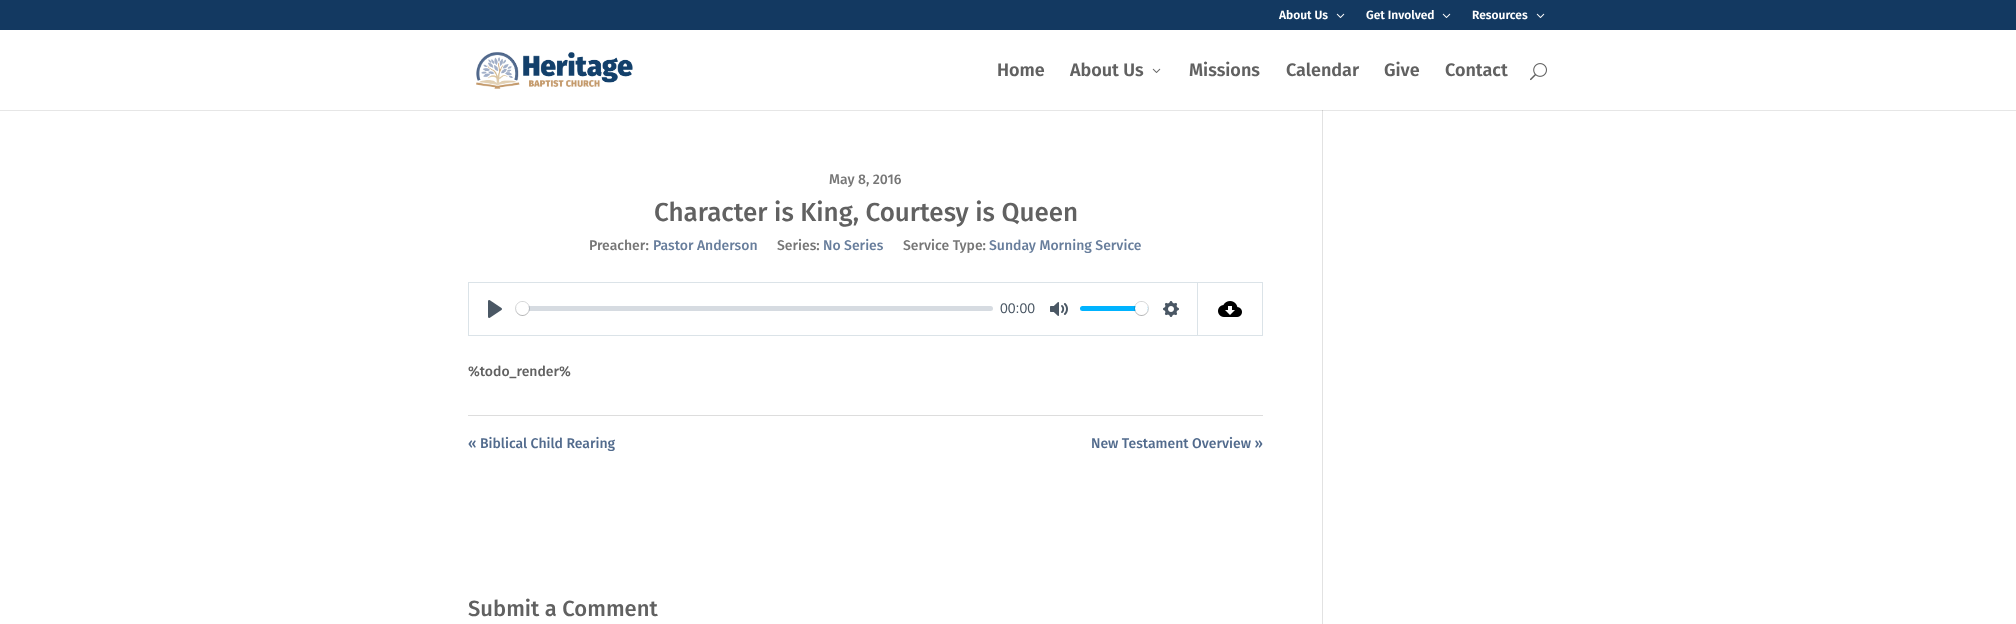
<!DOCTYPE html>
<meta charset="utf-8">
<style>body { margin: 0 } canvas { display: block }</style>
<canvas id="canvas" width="2016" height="624"></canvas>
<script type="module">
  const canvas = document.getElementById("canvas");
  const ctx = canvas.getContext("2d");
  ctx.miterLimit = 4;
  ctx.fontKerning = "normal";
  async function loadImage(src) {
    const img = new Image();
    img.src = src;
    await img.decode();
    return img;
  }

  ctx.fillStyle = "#133961";
  ctx.fillRect(0, 0, 2016, 624);
  ctx.font = "600 12px Fira Sans";
  ctx.fillStyle = "#ffffff";
  ctx.fillText("About Us", 1279, 19);
  ctx.drawImage(await loadImage("img1.png"), 1336, 13, 9, 5);
  ctx.fillText("Get Involved", 1366, 19);
  ctx.drawImage(await loadImage("img1.png"), 1442, 13, 9, 5);
  ctx.fillText("Resources", 1472, 19);
  ctx.drawImage(await loadImage("img1.png"), 1536, 13, 9, 5);
  ctx.fillRect(0, 30, 2016, 80);
  ctx.drawImage(await loadImage("img2.png"), 476, 52, 157, 37);
  ctx.font = "600 18px Fira Sans";
  ctx.fillStyle = "#616161";
  ctx.fillText("Home", 997, 76);
  ctx.fillText("About Us", 1070, 76);
  ctx.drawImage(await loadImage("img3.png"), 1152, 68, 9, 5);
  ctx.fillText("Missions", 1189, 76);
  ctx.fillText("Calendar", 1286, 76);
  ctx.fillText("Give", 1384, 76);
  ctx.fillText("Contact", 1445, 76);
  ctx.drawImage(await loadImage("img4.png"), 1530, 63, 17, 18);
  ctx.fillStyle = "#ffffff";
  ctx.fillRect(0, 111, 2016, 513);
  ctx.fillStyle = "#e6e6e6";
  ctx.fillRect(0, 110, 2016, 1);
  ctx.font = "500 14px Fira Sans";
  ctx.fillStyle = "#767676";
  ctx.fillText("May 8, 2016", 829, 184);
  ctx.font = "500 26px Fira Sans";
  ctx.fillStyle = "#616161";
  ctx.fillText("Character is King, Courtesy is Queen", 654, 221);
  ctx.font = "500 14px Fira Sans";
  ctx.fillStyle = "#767676";
  ctx.fillText("Preacher:", 589, 250);
  ctx.fillStyle = "#687e9c";
  ctx.fillText("Pastor Anderson", 653, 250);
  ctx.fillStyle = "#767676";
  ctx.fillText("Series:", 777, 250);
  ctx.fillStyle = "#687e9c";
  ctx.fillText("No Series", 823, 250);
  ctx.fillStyle = "#767676";
  ctx.fillText("Service Type:", 903, 250);
  ctx.fillStyle = "#687e9c";
  ctx.fillText("Sunday Morning Service", 989, 250);
  ctx.strokeStyle = "#dbe3e8";
  ctx.strokeRect(468.5, 282.5, 729, 53);
  ctx.drawImage(await loadImage("img5.png"), 488, 300, 14, 18);
  ctx.fillStyle = "rgba(193, 201, 209, 0.66)";
  ctx.beginPath();
  ctx.roundRect(516, 306, 477, 5, 2.5);
  ctx.fill();
  ctx.beginPath();
  ctx.arc(522.5, 308.5, 7, 0, Math.PI * 2);
  ctx.strokeStyle = "rgba(35, 41, 47, 0.2)";
  ctx.stroke();
  ctx.fillStyle = "rgba(0, 0, 0, 0.15)";
  ctx.filter = "blur(0.5px)";
  ctx.beginPath();
  ctx.roundRect(516, 303, 13, 13, 6.5);
  ctx.fill();
  ctx.filter = "none";
  ctx.fillStyle = "#ffffff";
  ctx.beginPath();
  ctx.arc(522.5, 308.5, 6.5, 0, Math.PI * 2);
  ctx.fill();
  ctx.font = "14px Liberation Sans";
  ctx.fillStyle = "#4a5764";
  ctx.fillText("00:00", 1000, 313);
  ctx.drawImage(await loadImage("img6.png"), 1050, 302, 18, 14);
  ctx.fillStyle = "#00b3ff";
  ctx.beginPath();
  ctx.roundRect(1080, 306, 68, 5, 2.5);
  ctx.fill();
  ctx.beginPath();
  ctx.arc(1141.5, 308.5, 7, 0, Math.PI * 2);
  ctx.stroke();
  ctx.fillStyle = "rgba(0, 0, 0, 0.15)";
  ctx.filter = "blur(0.5px)";
  ctx.beginPath();
  ctx.roundRect(1135, 303, 13, 13, 6.5);
  ctx.fill();
  ctx.filter = "none";
  ctx.fillStyle = "#ffffff";
  ctx.beginPath();
  ctx.arc(1141.5, 308.5, 6.5, 0, Math.PI * 2);
  ctx.fill();
  ctx.drawImage(await loadImage("img7.png"), 1163, 301, 16, 16);
  ctx.fillStyle = "#dbe3e8";
  ctx.fillRect(1198, 282, 65, 1);
  ctx.fillRect(1262, 282, 1, 54);
  ctx.fillRect(1198, 335, 65, 1);
  ctx.drawImage(await loadImage("img8.png"), 1218, 301, 24, 16);
  ctx.font = "500 14px Fira Sans";
  ctx.fillStyle = "#616161";
  ctx.fillText("%todo_render%", 468, 376);
  ctx.fillStyle = "#dddddd";
  ctx.fillRect(468, 415, 795, 1);
  ctx.fillStyle = "#526b8d";
  ctx.fillText("« Biblical Child Rearing", 468, 448);
  ctx.fillText("New Testament Overview »", 1091, 448);
  ctx.font = "500 22px Fira Sans";
  ctx.fillStyle = "#616161";
  ctx.fillText("Submit a Comment", 468, 616);
  ctx.fillStyle = "#e2e2e2";
  ctx.fillRect(1322, 110, 1, 514);
  ctx.fillStyle = "#cbcbcb";
  ctx.fillRect(1322, 110, 1, 1);
</script>
